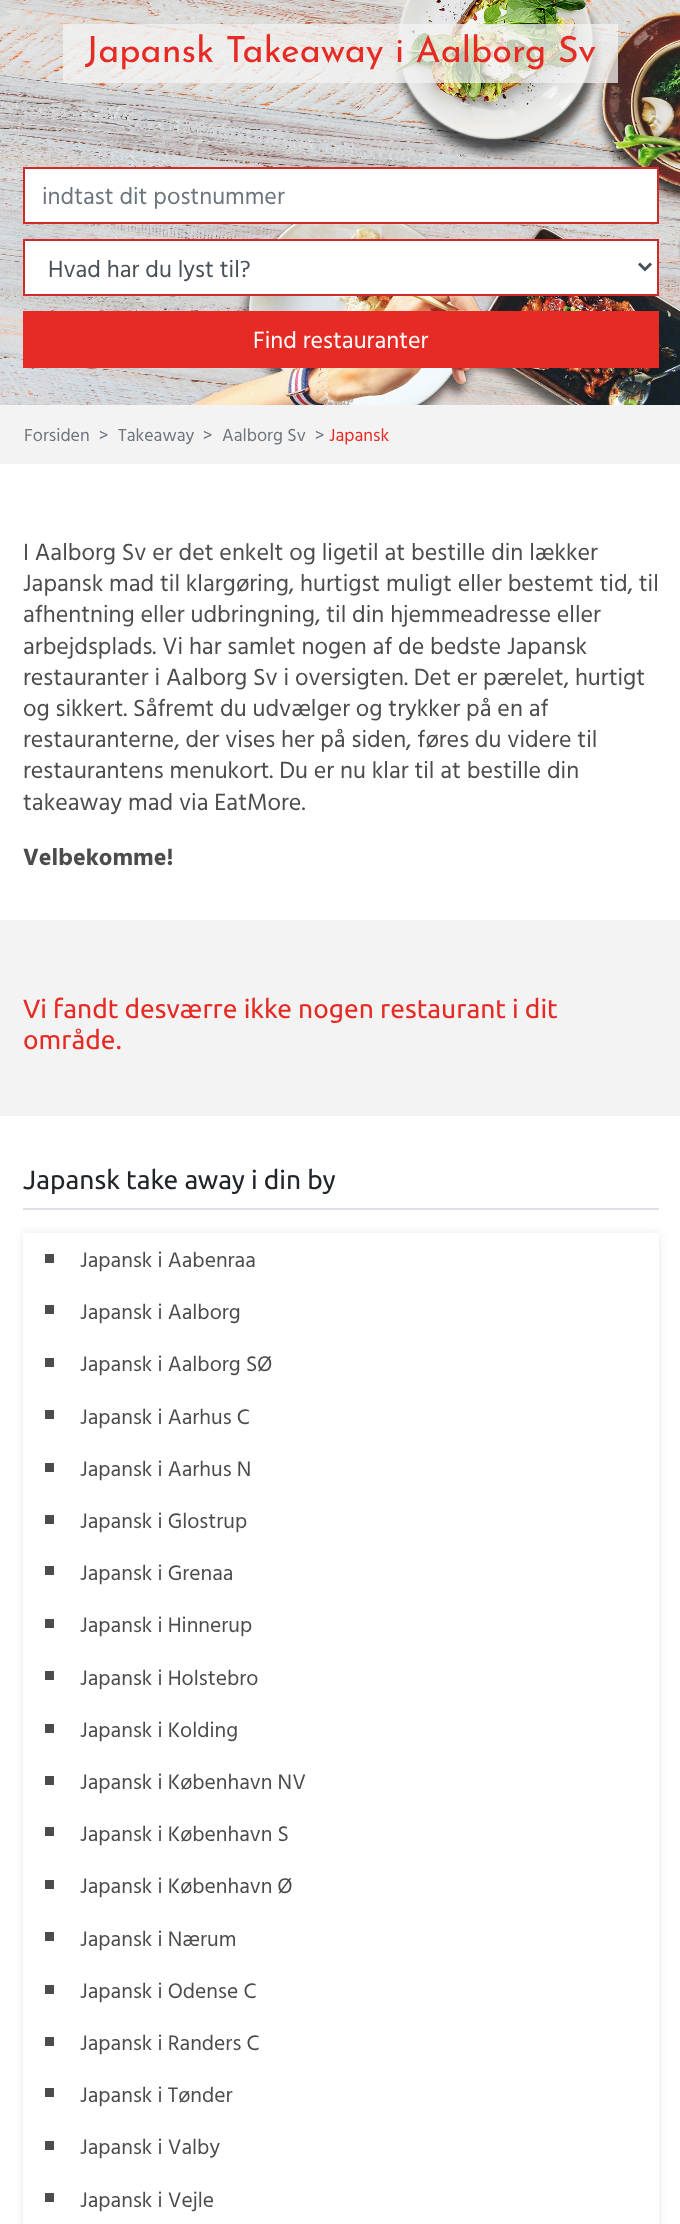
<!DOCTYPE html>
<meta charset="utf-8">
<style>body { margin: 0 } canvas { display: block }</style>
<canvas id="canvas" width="680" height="2224"></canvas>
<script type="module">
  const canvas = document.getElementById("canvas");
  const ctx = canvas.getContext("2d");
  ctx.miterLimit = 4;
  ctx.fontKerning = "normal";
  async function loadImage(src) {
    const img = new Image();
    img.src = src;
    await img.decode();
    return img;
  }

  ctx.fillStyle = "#f3f3f3";
  ctx.fillRect(0, 0, 680, 2224);
  ctx.drawImage(await loadImage("img1.png"), 0, 0, 680, 405);
  ctx.fillStyle = "rgba(243, 243, 243, 0.74)";
  ctx.fillRect(63, 24, 555, 59);
  ctx.font = "100 36px Josefin Sans";
  ctx.fillStyle = "#e62b25";
  ctx.fillText("Japansk Takeaway i Aalborg Sv", 85, 62);
  ctx.fillStyle = "#ffffff";
  ctx.beginPath();
  ctx.rect(24, 168, 634, 55);
  ctx.fill();
  ctx.strokeStyle = "#cf2a27";
  ctx.lineWidth = 2;
  ctx.stroke();
  ctx.font = "24px Hind Vadodara";
  ctx.fillStyle = "#6c757d";
  ctx.fillText("indtast dit postnummer", 42, 204);
  ctx.fillStyle = "#ffffff";
  ctx.beginPath();
  ctx.rect(24, 240, 634, 55);
  ctx.fill();
  ctx.stroke();
  ctx.beginPath();
  ctx.moveTo(639, 263.5);
  ctx.lineTo(645, 269.5);
  ctx.lineTo(651, 263.5);
  ctx.strokeStyle = "#495057";
  ctx.lineWidth = 3;
  ctx.stroke();
  ctx.fillStyle = "#495057";
  ctx.fillText("Hvad har du lyst til?", 48, 277);
  ctx.fillStyle = "#e62b25";
  ctx.fillRect(23, 311, 636, 57);
  ctx.fillStyle = "#ffffff";
  ctx.fillText("Find restauranter", 253, 348);
  ctx.font = "18px Hind Vadodara";
  ctx.fillStyle = "#6c757d";
  ctx.fillText("Forsiden", 24, 441);
  ctx.fillText(">", 99, 441);
  ctx.fillText("Takeaway", 118, 441);
  ctx.fillText(">", 203, 441);
  ctx.fillText("Aalborg Sv", 222, 441);
  ctx.fillText(">", 315, 441);
  ctx.fillStyle = "#e62b25";
  ctx.fillText("Japansk", 329, 441);
  ctx.fillStyle = "#ffffff";
  ctx.fillRect(0, 464, 680, 456);
  ctx.font = "24px Hind Vadodara";
  ctx.fillStyle = "#4c4c4c";
  ctx.fillText("I Aalborg Sv er det enkelt og ligetil at bestille din lækker", 23, 560);
  ctx.fillText("Japansk mad til klargøring, hurtigst muligt eller bestemt tid, til", 23, 591);
  ctx.fillText("afhentning eller udbringning, til din hjemmeadresse eller", 23, 622);
  ctx.fillText("arbejdsplads. Vi har samlet nogen af de bedste Japansk", 23, 654);
  ctx.fillText("restauranter i Aalborg Sv i oversigten. Det er pærelet, hurtigt", 23, 685);
  ctx.fillText("og sikkert. Såfremt du udvælger og trykker på en af", 23, 716);
  ctx.fillText("restauranterne, der vises her på siden, føres du videre til", 23, 747);
  ctx.fillText("restaurantens menukort. Du er nu klar til at bestille din", 23, 778);
  ctx.fillText("takeaway mad via EatMore.", 23, 810);
  ctx.font = "bold 24px Hind Vadodara";
  ctx.fillText("Velbekomme!", 23, 865);
  ctx.font = "26.4px Ubuntu";
  ctx.fillStyle = "#e62b25";
  ctx.fillText("Vi fandt desværre ikke nogen restaurant i dit", 23, 1018);
  ctx.fillText("område.", 23, 1049);
  ctx.fillStyle = "#ffffff";
  ctx.fillRect(0, 1116, 680, 1108);
  ctx.fillStyle = "#dee2e6";
  ctx.fillRect(23, 1208, 636, 2);
  ctx.fillStyle = "#212529";
  ctx.fillText("Japansk take away i din by", 23, 1189);
  ctx.save();
  ctx.beginPath();
  ctx.moveTo(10, 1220);
  ctx.lineTo(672, 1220);
  ctx.lineTo(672, 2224);
  ctx.lineTo(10, 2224);
  ctx.closePath();
  ctx.moveTo(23, 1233);
  ctx.lineTo(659, 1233);
  ctx.lineTo(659, 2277);
  ctx.lineTo(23, 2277);
  ctx.closePath();
  ctx.clip("evenodd");
  ctx.fillStyle = "#e7e7e7";
  ctx.filter = "blur(4px)";
  ctx.beginPath();
  ctx.rect(23, 1233, 636, 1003);
  ctx.fill();
  ctx.filter = "none";
  ctx.restore();
  ctx.fillStyle = "#4c4c4c";
  ctx.fillRect(45, 1254, 9, 9);
  ctx.font = "21.6px Hind Vadodara";
  ctx.fillText("Japansk i Aabenraa", 80, 1267);
  ctx.fillRect(45, 1305, 9, 9);
  ctx.fillText("Japansk i Aalborg", 80, 1319);
  ctx.fillRect(45, 1358, 9, 9);
  ctx.fillText("Japansk i Aalborg SØ", 80, 1371);
  ctx.fillRect(45, 1410, 9, 9);
  ctx.fillText("Japansk i Aarhus C", 80, 1424);
  ctx.fillRect(45, 1463, 9, 9);
  ctx.fillText("Japansk i Aarhus N", 80, 1476);
  ctx.fillRect(45, 1515, 9, 9);
  ctx.fillText("Japansk i Glostrup", 80, 1528);
  ctx.fillRect(45, 1566, 9, 9);
  ctx.fillText("Japansk i Grenaa", 80, 1580);
  ctx.fillRect(45, 1619, 9, 9);
  ctx.fillText("Japansk i Hinnerup", 80, 1632);
  ctx.fillRect(45, 1671, 9, 9);
  ctx.fillText("Japansk i Holstebro", 80, 1685);
  ctx.fillRect(45, 1724, 9, 9);
  ctx.fillText("Japansk i Kolding", 80, 1737);
  ctx.fillRect(45, 1776, 9, 9);
  ctx.fillText("Japansk i København NV", 80, 1789);
  ctx.fillRect(45, 1827, 9, 9);
  ctx.fillText("Japansk i København S", 80, 1841);
  ctx.fillRect(45, 1880, 9, 9);
  ctx.fillText("Japansk i København Ø", 80, 1893);
  ctx.fillRect(45, 1932, 9, 9);
  ctx.fillText("Japansk i Nærum", 80, 1946);
  ctx.fillRect(45, 1985, 9, 9);
  ctx.fillText("Japansk i Odense C", 80, 1998);
  ctx.fillRect(45, 2037, 9, 9);
  ctx.fillText("Japansk i Randers C", 80, 2050);
  ctx.fillRect(45, 2088, 9, 9);
  ctx.fillText("Japansk i Tønder", 80, 2102);
  ctx.fillRect(45, 2141, 9, 9);
  ctx.fillText("Japansk i Valby", 80, 2154);
  ctx.fillRect(45, 2193, 9, 9);
  ctx.fillText("Japansk i Vejle", 80, 2207);
</script>
